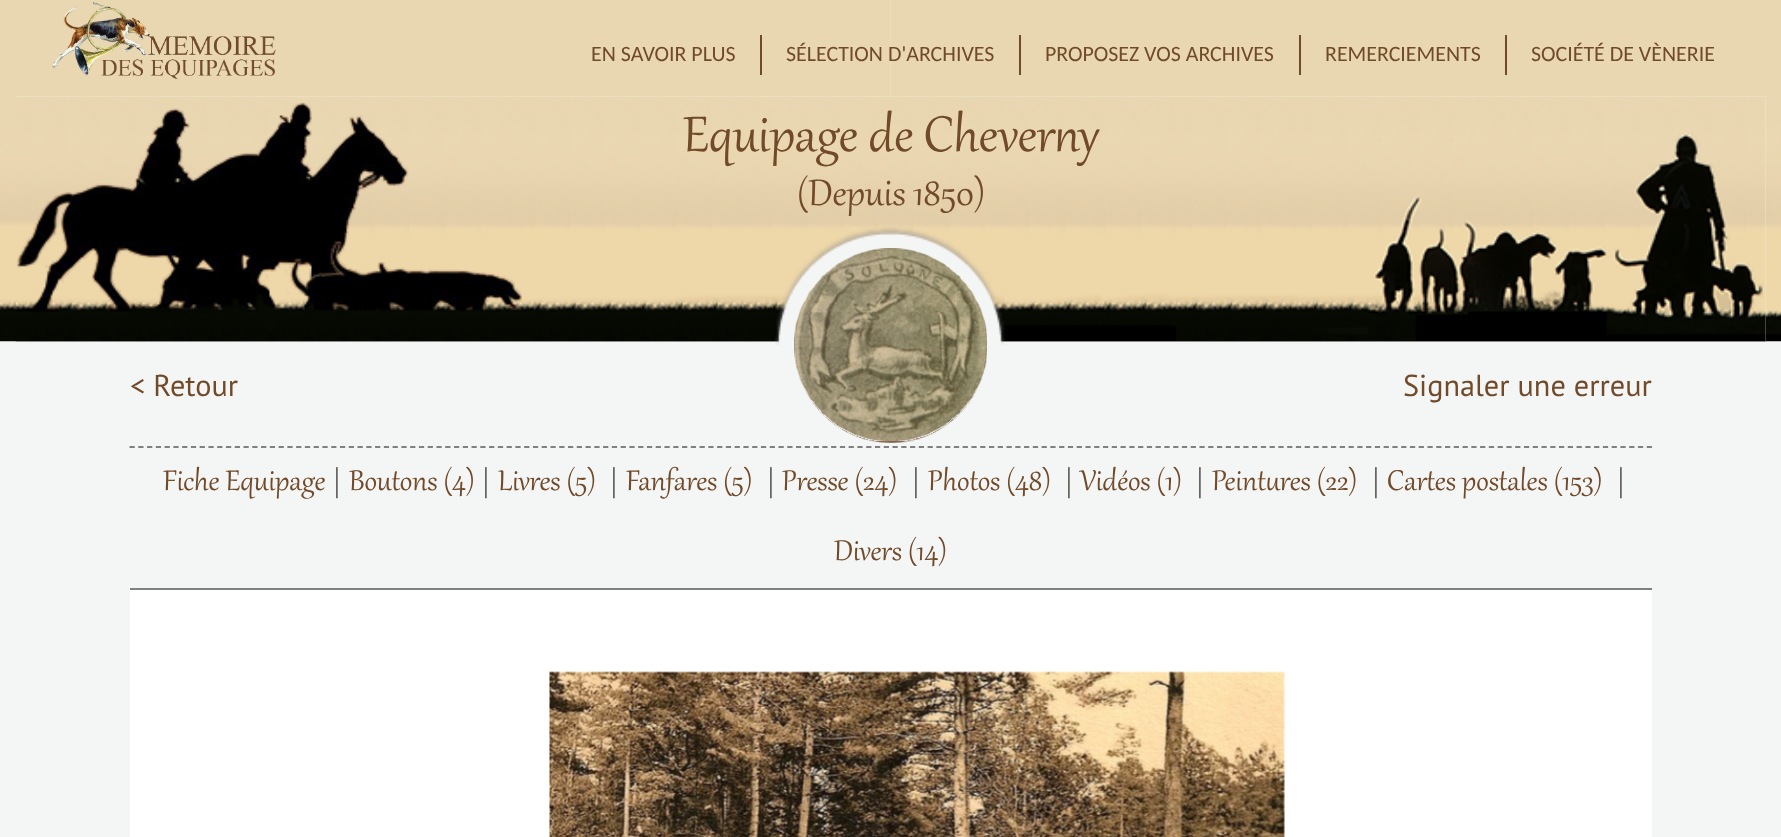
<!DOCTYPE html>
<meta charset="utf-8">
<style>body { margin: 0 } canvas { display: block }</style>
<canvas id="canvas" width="1781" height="837"></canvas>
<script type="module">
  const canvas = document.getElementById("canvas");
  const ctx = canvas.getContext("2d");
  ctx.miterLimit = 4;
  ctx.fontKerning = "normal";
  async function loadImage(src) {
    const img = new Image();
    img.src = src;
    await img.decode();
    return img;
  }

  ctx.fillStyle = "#f4f5f5";
  ctx.fillRect(0, 0, 1781, 837);
  ctx.drawImage(await loadImage("img1.png"), 0, 0, 891, 342);
  ctx.drawImage(await loadImage("img2.png"), 890, 0, 891, 342);
  ctx.drawImage(await loadImage("img3.png"), 52, 1, 224, 78);
  ctx.font = "21.9px Carlito";
  ctx.fillStyle = "#714a29";
  ctx.fillText("EN SAVOIR PLUS", 591, 61);
  ctx.fillRect(760, 35, 2, 40);
  ctx.fillText("SÉLECTION D'ARCHIVES", 786, 61);
  ctx.fillRect(1019, 35, 2, 40);
  ctx.fillText("PROPOSEZ VOS ARCHIVES", 1045, 61);
  ctx.fillRect(1299, 35, 2, 40);
  ctx.fillText("REMERCIEMENTS", 1325, 61);
  ctx.fillRect(1505, 35, 2, 40);
  ctx.fillText("SOCIÉTÉ DE VÈNERIE", 1531, 61);
  ctx.fillStyle = "#f4f5f5";
  ctx.fillRect(16, 96, 1750, 245);
  ctx.drawImage(await loadImage("img4.png"), 15, 96, 1751, 246);
  ctx.font = "61.25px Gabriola";
  ctx.fillStyle = "#714a29";
  ctx.fillText("Equipage de Cheverny", 683, 151);
  ctx.font = "45px Gabriola";
  ctx.fillText("(Depuis 1850)", 797, 205);
  ctx.drawImage(await loadImage("img5.png"), 774, 227, 231, 118);
  ctx.drawImage(await loadImage("img6.png"), 794, 248, 192, 195);
  ctx.drawImage(await loadImage("img7.png"), 794, 248, 193, 195);
  ctx.drawImage(await loadImage("img8.png"), 794, 248, 193, 193);
  ctx.font = "30.25px PT Sans";
  ctx.fillText("< Retour", 130, 396);
  ctx.drawImage(await loadImage("img9.png"), 794, 248, 193, 193);
  ctx.fillText("Signaler une erreur", 1403, 396);
  ctx.beginPath();
  ctx.moveTo(129.5, 447);
  ctx.lineTo(1652, 447);
  ctx.strokeStyle = "#808080";
  ctx.lineWidth = 1.8;
  ctx.setLineDash([5.25, 3.52]);
  ctx.stroke();
  ctx.fillStyle = "#808080";
  ctx.fillRect(130, 588, 1522, 2);
  ctx.font = "35px Gabriola";
  ctx.fillStyle = "#714a29";
  ctx.fillText("Fiche Equipage", 163, 490);
  ctx.fillStyle = "#37302a";
  ctx.fillText("|", 332, 490);
  ctx.fillStyle = "#714a29";
  ctx.fillText("Boutons (4)", 349, 490);
  ctx.fillStyle = "#37302a";
  ctx.fillText("|", 481, 490);
  ctx.fillStyle = "#714a29";
  ctx.fillText("Livres (5)", 498, 490);
  ctx.fillStyle = "#37302a";
  ctx.fillText("|", 609, 490);
  ctx.fillStyle = "#714a29";
  ctx.fillText("Fanfares (5)", 626, 490);
  ctx.fillStyle = "#37302a";
  ctx.fillText("|", 766, 490);
  ctx.fillStyle = "#714a29";
  ctx.fillText("Presse (24)", 782, 490);
  ctx.fillStyle = "#37302a";
  ctx.fillText("|", 911, 490);
  ctx.fillStyle = "#714a29";
  ctx.fillText("Photos (48)", 928, 490);
  ctx.fillStyle = "#37302a";
  ctx.fillText("|", 1064, 490);
  ctx.fillStyle = "#714a29";
  ctx.fillText("Vidéos (1)", 1080, 490);
  ctx.fillStyle = "#37302a";
  ctx.fillText("|", 1195, 490);
  ctx.fillStyle = "#714a29";
  ctx.fillText("Peintures (22)", 1212, 490);
  ctx.fillStyle = "#37302a";
  ctx.fillText("|", 1371, 490);
  ctx.fillStyle = "#714a29";
  ctx.fillText("Cartes postales (153)", 1387, 490);
  ctx.fillStyle = "#37302a";
  ctx.fillText("|", 1616, 490);
  ctx.fillStyle = "#714a29";
  ctx.fillText("Divers (14)", 834, 560);
  ctx.fillStyle = "#ffffff";
  ctx.fillRect(130, 590, 1522, 247);
  ctx.drawImage(await loadImage("img10.png"), 549, 671, 736, 166);
</script>
